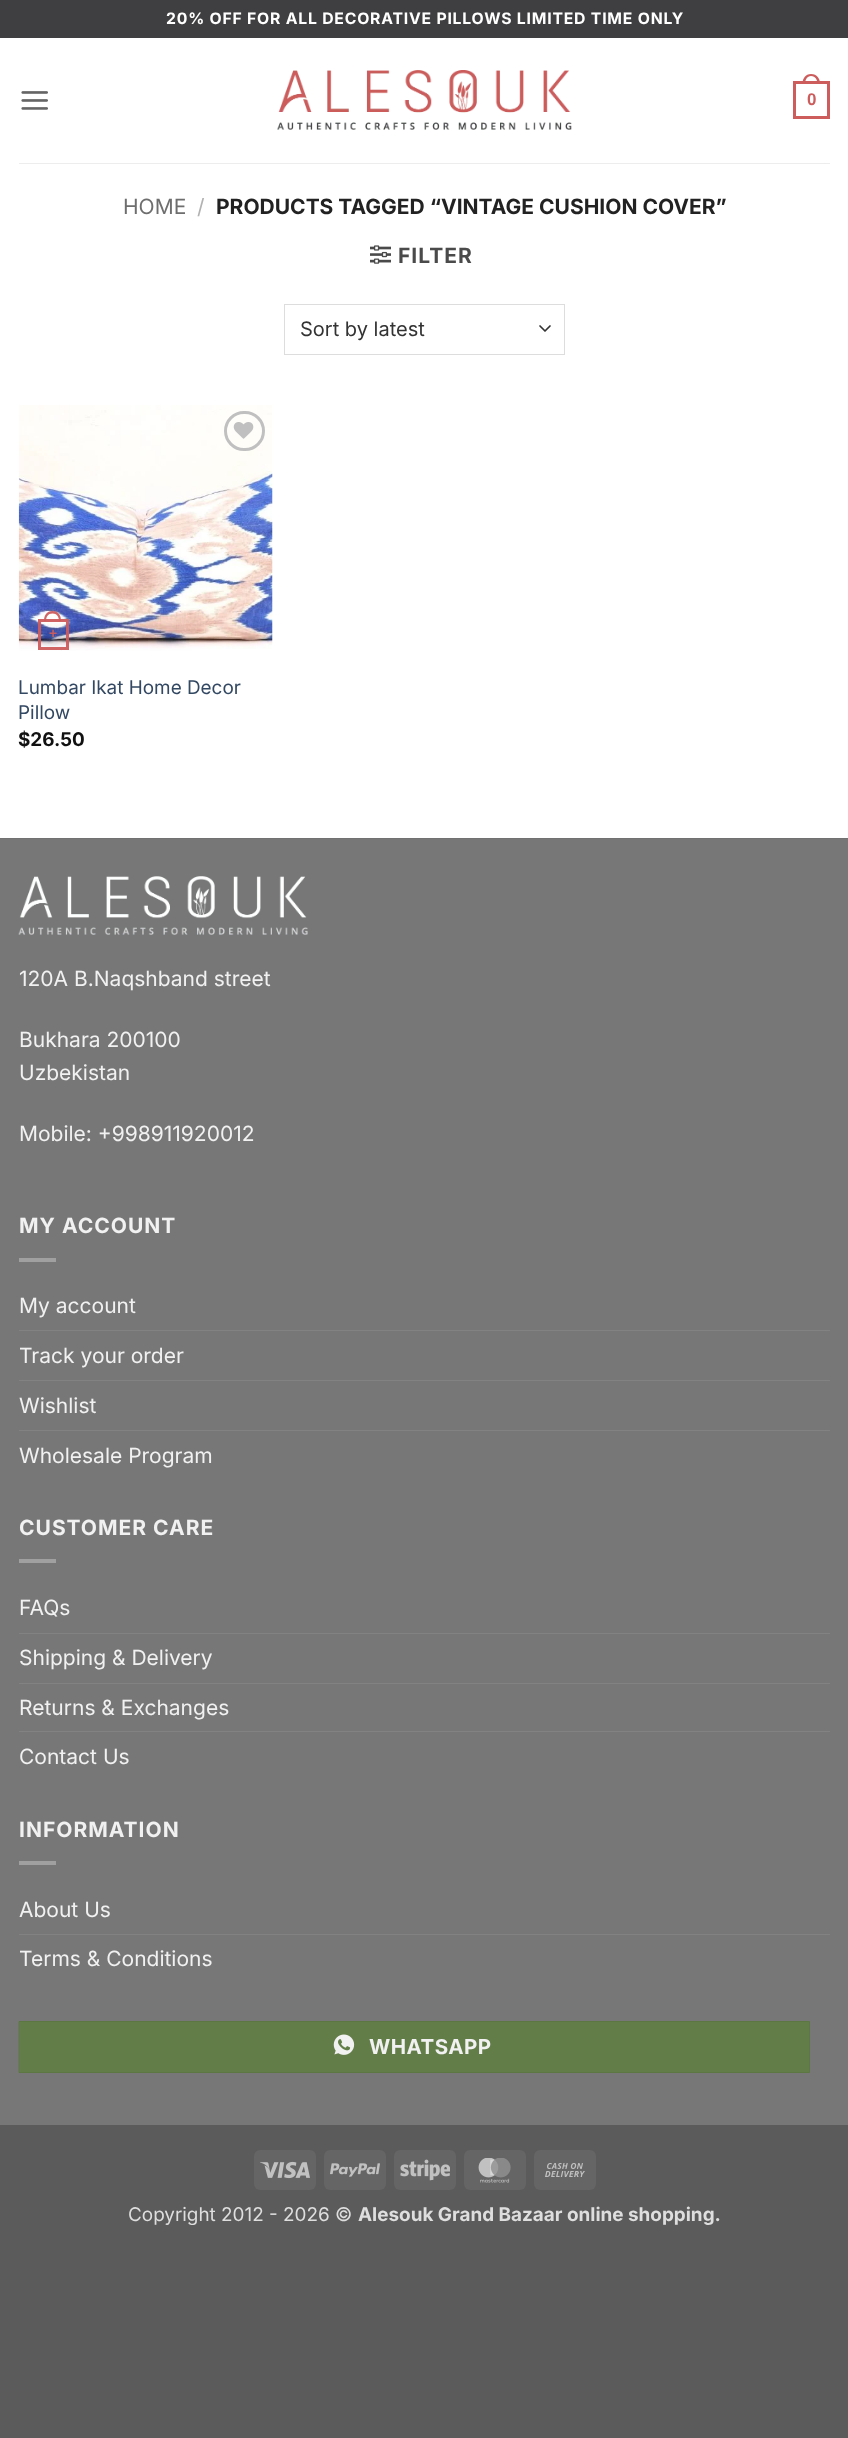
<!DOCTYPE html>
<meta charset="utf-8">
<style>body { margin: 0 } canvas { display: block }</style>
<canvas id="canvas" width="848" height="2438"></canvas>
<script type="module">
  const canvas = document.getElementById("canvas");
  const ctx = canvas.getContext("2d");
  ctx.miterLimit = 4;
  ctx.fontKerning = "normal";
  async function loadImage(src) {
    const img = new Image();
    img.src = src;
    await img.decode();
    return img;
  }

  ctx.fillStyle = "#5b5b5b";
  ctx.fillRect(0, 0, 848, 2438);
  ctx.fillStyle = "#ffffff";
  ctx.fillRect(0, 38, 848, 800);
  ctx.fillStyle = "#3f3f41";
  ctx.fillRect(0, 0, 848, 38);
  ctx.letterSpacing = "0.8px";
  ctx.font = "bold 15.75px Inter";
  ctx.fillStyle = "#ffffff";
  ctx.fillText("20% OFF FOR ALL DECORATIVE PILLOWS LIMITED TIME ONLY", 166, 24);
  ctx.drawImage(await loadImage("img1.png"), 21, 91, 27, 19);
  ctx.drawImage(await loadImage("img2.png"), 277, 70, 295, 60);
  ctx.strokeStyle = "#cd5c5c";
  ctx.lineWidth = 3;
  ctx.strokeRect(794.5, 82.5, 34, 35);
  ctx.fillStyle = "#cd5c5c";
  ctx.beginPath();
  ctx.moveTo(811, 74);
  ctx.bezierCurveTo(817, 74, 820, 78.5, 820, 84);
  ctx.lineTo(802.5, 84);
  ctx.bezierCurveTo(802.5, 78.5, 805.5, 74, 811, 74);
  ctx.closePath();
  ctx.moveTo(811, 76);
  ctx.bezierCurveTo(815.5, 76, 817.5, 80, 817.5, 84);
  ctx.lineTo(805, 84);
  ctx.bezierCurveTo(805, 80, 807, 76, 811, 76);
  ctx.closePath();
  ctx.fill("evenodd");
  ctx.letterSpacing = "0px";
  ctx.font = "bold 17px Liberation Sans";
  ctx.fillText("0", 807, 105);
  ctx.fillStyle = "#ededed";
  ctx.fillRect(19, 163, 811, 1);
  ctx.font = "21px Inter";
  ctx.fillStyle = "#6e6e6e";
  ctx.fillText("HOME", 123, 214);
  ctx.fillStyle = "#b2b2b2";
  ctx.fillText("/", 197, 214);
  ctx.font = "bold 21px Inter";
  ctx.fillStyle = "#222222";
  ctx.fillText("PRODUCTS TAGGED “VINTAGE CUSHION COVER”", 216, 214);
  ctx.drawImage(await loadImage("img3.png"), 370, 245, 21, 19);
  ctx.letterSpacing = "1px";
  ctx.fillStyle = "#4a4a4a";
  ctx.fillText("FILTER", 398, 263);
  ctx.beginPath();
  ctx.moveTo(540, 326);
  ctx.lineTo(545, 331);
  ctx.lineTo(550, 326);
  ctx.strokeStyle = "#333333";
  ctx.lineWidth = 1.7;
  ctx.lineCap = "round";
  ctx.lineJoin = "round";
  ctx.stroke();
  ctx.strokeStyle = "#dddddd";
  ctx.lineWidth = 1;
  ctx.lineJoin = "miter";
  ctx.strokeRect(284.5, 304.5, 280, 50);
  ctx.letterSpacing = "0px";
  ctx.font = "20px Inter";
  ctx.fillStyle = "#333333";
  ctx.fillText("Sort by latest", 300, 336);
  ctx.drawImage(await loadImage("img4.png"), 18, 405, 255, 246);
  ctx.beginPath();
  ctx.roundRect(225.5, 412.5, 38, 37, 18.5);
  ctx.strokeStyle = "#c0c0c0";
  ctx.lineWidth = 3;
  ctx.stroke();
  ctx.drawImage(await loadImage("img5.png"), 233, 422, 21, 17);
  ctx.strokeStyle = "rgba(205, 92, 92, 0.95)";
  ctx.strokeRect(39.5, 620.5, 28, 28);
  ctx.fillStyle = "rgba(205, 92, 92, 0.95)";
  ctx.beginPath();
  ctx.moveTo(52.5, 611);
  ctx.bezierCurveTo(58.5, 611, 61, 615.5, 61, 621);
  ctx.lineTo(44, 621);
  ctx.bezierCurveTo(44, 615.5, 46.5, 611, 52.5, 611);
  ctx.closePath();
  ctx.moveTo(52.5, 613.5);
  ctx.bezierCurveTo(57, 613.5, 59, 617, 59, 621);
  ctx.lineTo(46, 621);
  ctx.bezierCurveTo(46, 617, 48, 613.5, 52.5, 613.5);
  ctx.closePath();
  ctx.fill("evenodd");
  ctx.font = "bold 14px Liberation Sans";
  ctx.fillStyle = "#c65c60";
  ctx.fillText("+", 49, 638);
  ctx.font = "18.9px Inter";
  ctx.fillStyle = "#334862";
  ctx.fillText("Lumbar Ikat Home Decor", 18, 694);
  ctx.fillText("Pillow", 18, 719);
  ctx.font = "bold 18.9px Inter";
  ctx.fillStyle = "#111111";
  ctx.fillText("$26.50", 18, 746);
  ctx.fillStyle = "#777777";
  ctx.fillRect(0, 839, 848, 1286);
  ctx.fillStyle = "#717171";
  ctx.fillRect(0, 838, 848, 1);
  ctx.drawImage(await loadImage("img6.png"), 18, 876, 290, 59);
  ctx.font = "21px Inter";
  ctx.fillStyle = "#f1f1f1";
  ctx.fillText("120A B.Naqshband street", 19, 986);
  ctx.fillText("Bukhara 200100", 19, 1047);
  ctx.fillText("Uzbekistan", 19, 1080);
  ctx.fillText("Mobile: +998911920012", 19, 1141);
  ctx.letterSpacing = "1px";
  ctx.font = "bold 21px Inter";
  ctx.fillText("MY ACCOUNT", 19, 1233);
  ctx.fillStyle = "#a0a0a0";
  ctx.fillRect(19, 1258, 37, 4);
  ctx.letterSpacing = "0px";
  ctx.font = "21px Inter";
  ctx.fillStyle = "#f1f1f1";
  ctx.fillText("My account", 19, 1313);
  ctx.fillStyle = "#828282";
  ctx.fillRect(19, 1330, 811, 1);
  ctx.fillStyle = "#f1f1f1";
  ctx.fillText("Track your order", 19, 1363);
  ctx.fillStyle = "#828282";
  ctx.fillRect(19, 1380, 811, 1);
  ctx.fillStyle = "#f1f1f1";
  ctx.fillText("Wishlist", 19, 1413);
  ctx.fillStyle = "#828282";
  ctx.fillRect(19, 1430, 811, 1);
  ctx.fillStyle = "#f1f1f1";
  ctx.fillText("Wholesale Program", 19, 1463);
  ctx.letterSpacing = "1px";
  ctx.font = "bold 21px Inter";
  ctx.fillText("CUSTOMER CARE", 19, 1535);
  ctx.fillStyle = "#a0a0a0";
  ctx.fillRect(19, 1559, 37, 4);
  ctx.letterSpacing = "0px";
  ctx.font = "21px Inter";
  ctx.fillStyle = "#f1f1f1";
  ctx.fillText("FAQs", 19, 1615);
  ctx.fillStyle = "#828282";
  ctx.fillRect(19, 1633, 811, 1);
  ctx.fillStyle = "#f1f1f1";
  ctx.fillText("Shipping & Delivery", 19, 1665);
  ctx.fillStyle = "#828282";
  ctx.fillRect(19, 1683, 811, 1);
  ctx.fillStyle = "#f1f1f1";
  ctx.fillText("Returns & Exchanges", 19, 1715);
  ctx.fillStyle = "#828282";
  ctx.fillRect(19, 1731, 811, 1);
  ctx.fillStyle = "#f1f1f1";
  ctx.fillText("Contact Us", 19, 1764);
  ctx.letterSpacing = "1px";
  ctx.font = "bold 21px Inter";
  ctx.fillText("INFORMATION", 19, 1837);
  ctx.fillStyle = "#a0a0a0";
  ctx.fillRect(19, 1861, 37, 4);
  ctx.letterSpacing = "0px";
  ctx.font = "21px Inter";
  ctx.fillStyle = "#f1f1f1";
  ctx.fillText("About Us", 19, 1917);
  ctx.fillStyle = "#828282";
  ctx.fillRect(19, 1934, 811, 1);
  ctx.fillStyle = "#f1f1f1";
  ctx.fillText("Terms & Conditions", 19, 1966);
  ctx.fillStyle = "#627d47";
  ctx.beginPath();
  ctx.rect(19.5, 2021.5, 790, 51);
  ctx.fill();
  ctx.strokeStyle = "#5d7743";
  ctx.lineWidth = 1;
  ctx.stroke();
  ctx.drawImage(await loadImage("img7.png"), 333, 2034, 22, 21);
  ctx.letterSpacing = "0.5px";
  ctx.font = "bold 20.5px Inter";
  ctx.fillStyle = "#f1f1f1";
  ctx.fillText("WHATSAPP", 369, 2054);
  ctx.fillStyle = "#656565";
  ctx.beginPath();
  ctx.roundRect(254, 2150, 62, 40, 6);
  ctx.fill();
  ctx.drawImage(await loadImage("img8.png"), 260, 2161, 50, 18);
  ctx.beginPath();
  ctx.roundRect(324, 2150, 62, 40, 6);
  ctx.fill();
  ctx.drawImage(await loadImage("img9.png"), 330, 2163, 50, 14);
  ctx.beginPath();
  ctx.roundRect(394, 2150, 62, 40, 6);
  ctx.fill();
  ctx.drawImage(await loadImage("img10.png"), 400, 2159, 50, 22);
  ctx.beginPath();
  ctx.roundRect(464, 2150, 62, 40, 6);
  ctx.fill();
  ctx.drawImage(await loadImage("img11.png"), 478, 2158, 33, 25);
  ctx.beginPath();
  ctx.roundRect(534, 2150, 62, 40, 6);
  ctx.fill();
  ctx.drawImage(await loadImage("img12.png"), 545, 2163, 40, 14);
  ctx.letterSpacing = "0px";
  ctx.font = "18.9px Inter";
  ctx.fillStyle = "#dedede";
  ctx.fillText("Copyright 2012 - 2026 ©", 128, 2221);
  ctx.font = "bold 18.9px Inter";
  ctx.fillText("Alesouk Grand Bazaar online shopping.", 358, 2221);
</script>
